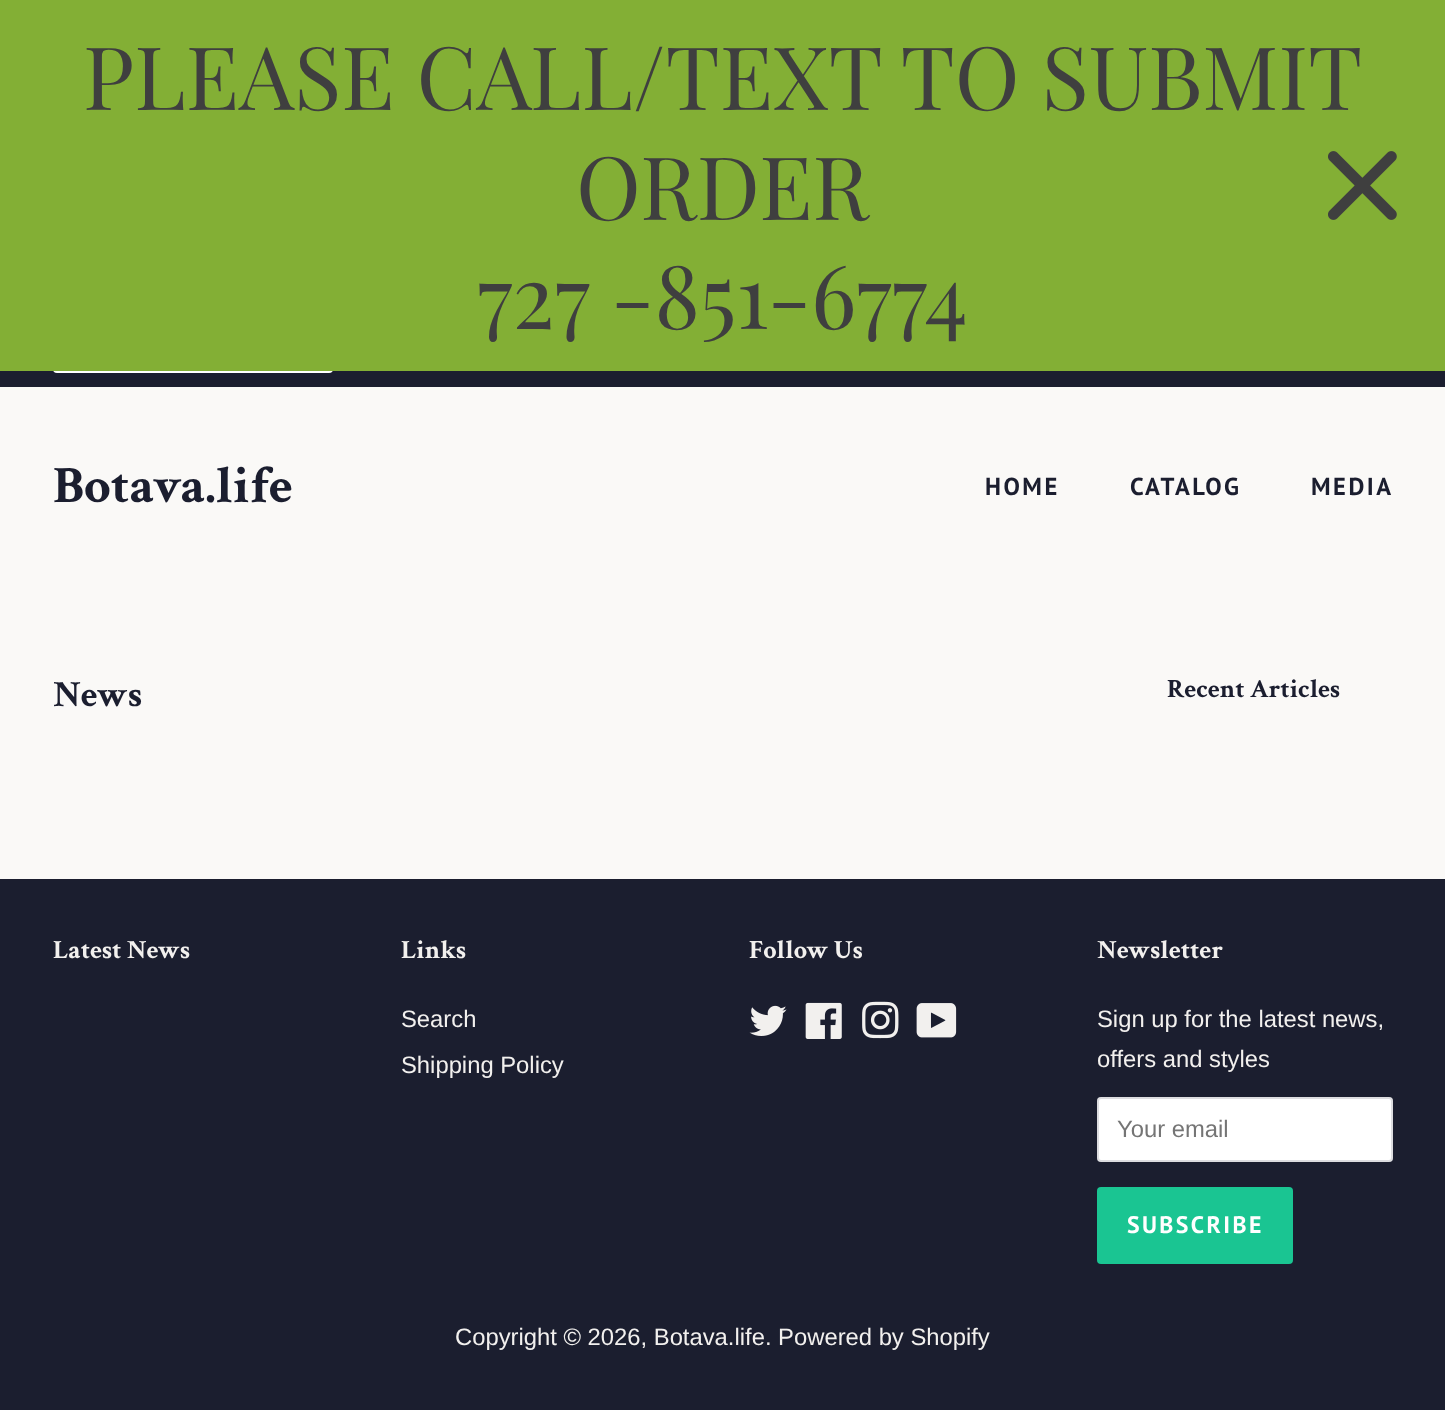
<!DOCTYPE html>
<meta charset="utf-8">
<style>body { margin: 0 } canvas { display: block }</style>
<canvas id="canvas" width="1445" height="1410"></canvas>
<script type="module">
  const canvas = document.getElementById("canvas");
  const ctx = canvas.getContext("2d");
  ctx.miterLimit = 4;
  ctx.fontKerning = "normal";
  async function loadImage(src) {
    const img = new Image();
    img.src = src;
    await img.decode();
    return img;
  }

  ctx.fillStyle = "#faf9f7";
  ctx.fillRect(0, 0, 1445, 1410);
  ctx.fillStyle = "#1b1e2f";
  ctx.fillRect(0, 371, 1445, 16);
  ctx.fillStyle = "#ffffff";
  ctx.beginPath();
  ctx.roundRect(53, 317, 280, 56, 4);
  ctx.fill();
  ctx.fillStyle = "#83af35";
  ctx.fillRect(0, 0, 1445, 371);
  ctx.font = "87.5px Playfair Display";
  ctx.fillStyle = "#3f3f3f";
  ctx.fillText("PLEASE CALL/TEXT TO SUBMIT", 83, 110);
  ctx.fillText("ORDER", 576, 220);
  ctx.fillText("727 -851-6774", 477, 329);
  ctx.drawImage(await loadImage("img1.png"), 1328, 151, 69, 69);
  ctx.font = "bold 52.5px Crimson Text";
  ctx.fillStyle = "#1b1e2f";
  ctx.fillText("Botava.life", 53, 502);
  ctx.letterSpacing = "2.5px";
  ctx.font = "bold 24.5px PT Sans";
  ctx.fillText("HOME", 985, 495);
  ctx.fillText("CATALOG", 1130, 495);
  ctx.fillText("MEDIA", 1311, 495);
  ctx.letterSpacing = "0px";
  ctx.font = "bold 37px Crimson Text";
  ctx.fillText("News", 53, 706);
  ctx.font = "bold 26.25px Crimson Text";
  ctx.fillText("Recent Articles", 1167, 697);
  ctx.fillRect(0, 879, 1445, 531);
  ctx.fillStyle = "#f2f0ee";
  ctx.fillText("Latest News", 53, 958);
  ctx.fillText("Links", 401, 958);
  ctx.font = "23.8px Liberation Sans";
  ctx.fillText("Search", 401, 1027);
  ctx.fillText("Shipping Policy", 401, 1073);
  ctx.font = "bold 26.25px Crimson Text";
  ctx.fillText("Follow Us", 749, 958);
  ctx.drawImage(await loadImage("img2.png"), 749, 1005, 38, 31);
  ctx.drawImage(await loadImage("img3.png"), 805, 1002, 37, 37);
  ctx.drawImage(await loadImage("img4.png"), 862, 1001, 37, 38);
  ctx.drawImage(await loadImage("img5.png"), 916, 1003, 41, 35);
  ctx.fillText("Newsletter", 1097, 958);
  ctx.font = "23.8px Liberation Sans";
  ctx.fillText("Sign up for the latest news,", 1097, 1027);
  ctx.fillText("offers and styles", 1097, 1067);
  ctx.fillStyle = "#ffffff";
  ctx.beginPath();
  ctx.roundRect(1097, 1097, 296, 65, 4);
  ctx.fill();
  ctx.beginPath();
  ctx.roundRect(1098, 1098, 294, 63, 3);
  ctx.strokeStyle = "rgba(27, 30, 47, 0.15)";
  ctx.lineWidth = 2;
  ctx.stroke();
  ctx.fillStyle = "#757575";
  ctx.fillText("Your email", 1117, 1137);
  ctx.fillStyle = "#1ac592";
  ctx.beginPath();
  ctx.roundRect(1097, 1187, 196, 77, 4);
  ctx.fill();
  ctx.letterSpacing = "2.4px";
  ctx.font = "bold 23.8px PT Sans";
  ctx.fillStyle = "#ffffff";
  ctx.fillText("SUBSCRIBE", 1127, 1233);
  ctx.letterSpacing = "0px";
  ctx.font = "23.8px Liberation Sans";
  ctx.fillStyle = "#f2f0ee";
  ctx.fillText("Copyright © 2026, Botava.life. Powered by Shopify", 455, 1345);
</script>
